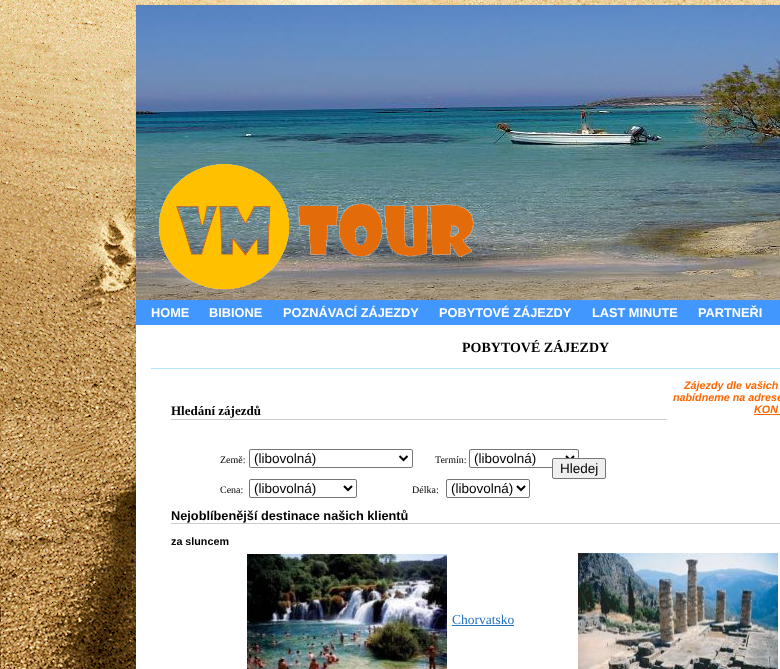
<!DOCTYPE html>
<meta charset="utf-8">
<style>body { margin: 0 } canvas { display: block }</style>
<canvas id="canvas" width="780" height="669"></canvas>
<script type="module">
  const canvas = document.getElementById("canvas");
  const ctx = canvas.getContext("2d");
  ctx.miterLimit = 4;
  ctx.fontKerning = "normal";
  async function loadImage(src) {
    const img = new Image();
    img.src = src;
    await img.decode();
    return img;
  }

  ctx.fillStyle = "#ffffff";
  ctx.fillRect(0, 0, 780, 669);
  ctx.drawImage(await loadImage("img1.png"), 0, 0, 780, 669);
  ctx.drawImage(await loadImage("img2.png"), 136, 5, 644, 295);
  ctx.fillStyle = "#4297ff";
  ctx.fillRect(136, 300, 644, 25);
  ctx.font = "bold 12.75px Liberation Sans";
  ctx.fillStyle = "#ffffff";
  ctx.fillText("HOME", 151, 317);
  ctx.fillText("BIBIONE", 209, 317);
  ctx.fillText("POZNÁVACÍ ZÁJEZDY", 283, 317);
  ctx.fillText("POBYTOVÉ ZÁJEZDY", 439, 317);
  ctx.fillText("LAST MINUTE", 592, 317);
  ctx.fillText("PARTNEŘI", 698, 317);
  ctx.fillRect(136, 325, 644, 344);
  ctx.font = "bold 14px Liberation Serif";
  ctx.fillStyle = "#000000";
  ctx.fillText("POBYTOVÉ ZÁJEZDY", 462, 352);
  ctx.fillStyle = "#b0e7ff";
  ctx.fillRect(151, 368, 629, 1);
  ctx.font = "italic bold 10.75px Liberation Sans";
  ctx.fillStyle = "#ff6600";
  ctx.fillText("Zájezdy dle vašich", 684, 389);
  ctx.fillText("nabídneme na adrese", 673, 401);
  ctx.fillStyle = "#cccccc";
  ctx.fillRect(171, 419, 496, 1);
  ctx.font = "bold 13px Liberation Serif";
  ctx.fillStyle = "#000000";
  ctx.fillText("Hledání zájezdů", 171, 415);
  ctx.font = "10px Liberation Serif";
  ctx.fillText("Země:", 220, 463);
  ctx.beginPath();
  ctx.roundRect(249.5, 449.5, 163, 18, 1.5);
  ctx.strokeStyle = "#767676";
  ctx.stroke();
  ctx.beginPath();
  ctx.moveTo(399.5, 456);
  ctx.lineTo(403.5, 460);
  ctx.lineTo(407.5, 456);
  ctx.strokeStyle = "#000000";
  ctx.lineWidth = 2;
  ctx.stroke();
  ctx.font = "13.5px Liberation Sans";
  ctx.fillText("(libovolná)", 254, 463);
  ctx.font = "10px Liberation Serif";
  ctx.fillText("Termín:", 435, 463);
  ctx.beginPath();
  ctx.roundRect(469.5, 449.5, 109, 18, 1.5);
  ctx.strokeStyle = "#767676";
  ctx.lineWidth = 1;
  ctx.stroke();
  ctx.beginPath();
  ctx.moveTo(566, 456);
  ctx.lineTo(570, 460);
  ctx.lineTo(574, 456);
  ctx.strokeStyle = "#000000";
  ctx.lineWidth = 2;
  ctx.stroke();
  ctx.font = "13.5px Liberation Sans";
  ctx.fillText("(libovolná)", 474, 463);
  ctx.fillStyle = "#efefef";
  ctx.beginPath();
  ctx.roundRect(552.5, 458.5, 53, 20, 1.5);
  ctx.fill();
  ctx.strokeStyle = "#767676";
  ctx.lineWidth = 1;
  ctx.stroke();
  ctx.fillStyle = "#000000";
  ctx.fillText("Hledej", 560, 473);
  ctx.font = "10px Liberation Serif";
  ctx.fillText("Cena:", 220, 493);
  ctx.beginPath();
  ctx.roundRect(249.5, 479.5, 107, 18, 1.5);
  ctx.stroke();
  ctx.beginPath();
  ctx.moveTo(344, 486);
  ctx.lineTo(348, 490);
  ctx.lineTo(352, 486);
  ctx.strokeStyle = "#000000";
  ctx.lineWidth = 2;
  ctx.stroke();
  ctx.font = "13.5px Liberation Sans";
  ctx.fillText("(libovolná)", 254, 493);
  ctx.font = "10px Liberation Serif";
  ctx.fillText("Délka:", 412, 493);
  ctx.beginPath();
  ctx.roundRect(446.5, 479.5, 83, 18, 1.5);
  ctx.strokeStyle = "#767676";
  ctx.lineWidth = 1;
  ctx.stroke();
  ctx.beginPath();
  ctx.moveTo(517, 486);
  ctx.lineTo(521, 490);
  ctx.lineTo(525, 486);
  ctx.strokeStyle = "#000000";
  ctx.lineWidth = 2;
  ctx.stroke();
  ctx.font = "13.5px Liberation Sans";
  ctx.fillText("(libovolná)", 451, 493);
  ctx.font = "italic bold 10.75px Liberation Sans";
  ctx.fillStyle = "#ff6600";
  ctx.fillText("KON", 754, 413);
  ctx.fillRect(754, 414, 26, 1);
  ctx.fillStyle = "#cccccc";
  ctx.fillRect(171, 523, 609, 1);
  ctx.font = "bold 12.75px Liberation Sans";
  ctx.fillStyle = "#000000";
  ctx.fillText("Nejoblíbenější destinace našich klientů", 171, 520);
  ctx.font = "bold 10.75px Liberation Sans";
  ctx.fillText("za sluncem", 171, 545);
  ctx.drawImage(await loadImage("img3.png"), 247, 554, 200, 115);
  ctx.font = "13.5px Liberation Serif";
  ctx.fillStyle = "#2573bd";
  ctx.fillText("Chorvatsko", 452, 624);
  ctx.fillRect(452, 625, 62, 1);
  ctx.drawImage(await loadImage("img4.png"), 578, 553, 200, 116);
</script>
